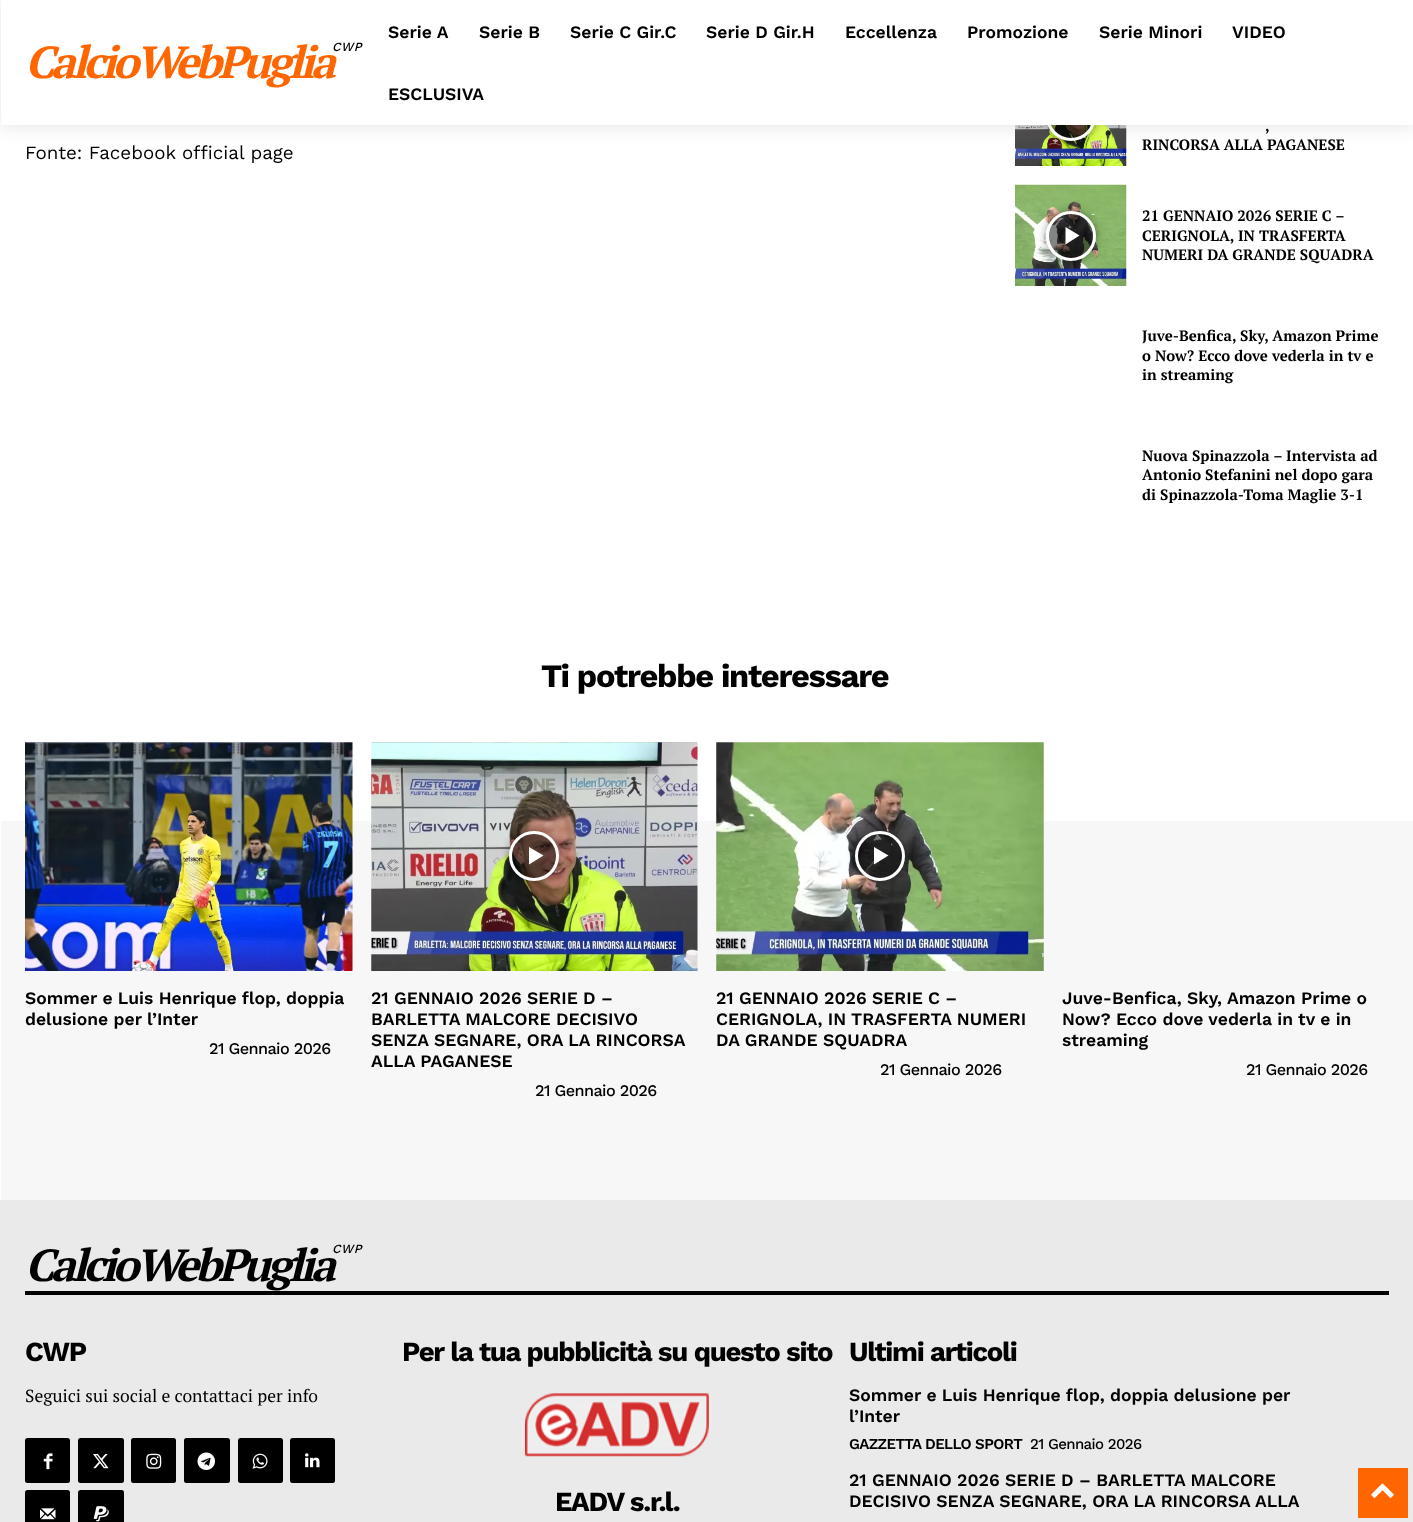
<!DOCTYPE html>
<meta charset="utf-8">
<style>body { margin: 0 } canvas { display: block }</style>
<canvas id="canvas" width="1413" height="1522"></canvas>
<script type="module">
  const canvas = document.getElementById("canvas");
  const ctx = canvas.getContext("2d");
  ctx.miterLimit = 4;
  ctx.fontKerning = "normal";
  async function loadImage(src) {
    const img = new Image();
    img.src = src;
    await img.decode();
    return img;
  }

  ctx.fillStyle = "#ffffff";
  ctx.fillRect(0, 0, 1413, 1522);
  ctx.drawImage(await loadImage("img1.png"), 1015, 125, 112, 41);
  ctx.save();
  ctx.beginPath();
  ctx.moveTo(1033, 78);
  ctx.lineTo(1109, 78);
  ctx.lineTo(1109, 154);
  ctx.lineTo(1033, 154);
  ctx.closePath();
  ctx.moveTo(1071, 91);
  ctx.bezierCurveTo(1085, 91, 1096, 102, 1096, 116);
  ctx.bezierCurveTo(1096, 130, 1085, 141, 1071, 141);
  ctx.bezierCurveTo(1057, 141, 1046, 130, 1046, 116);
  ctx.bezierCurveTo(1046, 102, 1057, 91, 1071, 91);
  ctx.closePath();
  ctx.clip("evenodd");
  ctx.fillStyle = "rgba(0, 0, 0, 0.4)";
  ctx.filter = "blur(4px)";
  ctx.beginPath();
  ctx.roundRect(1046, 91, 50, 50, 25);
  ctx.fill();
  ctx.filter = "none";
  ctx.restore();
  ctx.fillStyle = "rgba(0, 0, 0, 0.48)";
  ctx.beginPath();
  ctx.arc(1071, 116, 23.5, 0, Math.PI * 2);
  ctx.fill();
  ctx.strokeStyle = "#ffffff";
  ctx.lineWidth = 3;
  ctx.stroke();
  ctx.fillStyle = "#ffffff";
  ctx.fillRect(1038, 83, 66, 42);
  ctx.save();
  ctx.beginPath();
  ctx.moveTo(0, 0);
  ctx.lineTo(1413, 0);
  ctx.lineTo(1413, 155);
  ctx.lineTo(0, 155);
  ctx.closePath();
  ctx.moveTo(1, 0);
  ctx.lineTo(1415, 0);
  ctx.lineTo(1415, 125);
  ctx.lineTo(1, 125);
  ctx.closePath();
  ctx.clip("evenodd");
  ctx.fillStyle = "rgba(0, 0, 0, 0.12)";
  ctx.filter = "blur(9.5px)";
  ctx.beginPath();
  ctx.rect(1, 0, 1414, 125);
  ctx.fill();
  ctx.filter = "none";
  ctx.restore();
  ctx.letterSpacing = "-3.75px";
  ctx.font = "italic bold 45px PT Serif";
  ctx.fillStyle = "#ff6600";
  ctx.fillText("CalcioWebPuglia", 25, 78);
  ctx.letterSpacing = "0.5px";
  ctx.font = "italic 500 12.5px Work Sans";
  ctx.fillStyle = "#000000";
  ctx.fillText("CWP", 332, 51);
  ctx.letterSpacing = "0px";
  ctx.font = "600 17.5px Work Sans";
  ctx.fillText("Serie A", 388, 38);
  ctx.fillText("Serie B", 479, 38);
  ctx.fillText("Serie C Gir.C", 570, 38);
  ctx.fillText("Serie D Gir.H", 706, 38);
  ctx.fillText("Eccellenza", 845, 38);
  ctx.fillText("Promozione", 967, 38);
  ctx.fillText("Serie Minori", 1099, 38);
  ctx.fillText("VIDEO", 1232, 38);
  ctx.fillText("ESCLUSIVA", 388, 100);
  ctx.font = "18.75px Work Sans";
  ctx.fillText("Fonte: Facebook official page", 25, 159);
  ctx.font = "bold 15px PT Serif";
  ctx.fillText(",", 1265, 131);
  ctx.fillText("RINCORSA ALLA PAGANESE", 1142, 150);
  ctx.drawImage(await loadImage("img2.png"), 1015, 184, 112, 102);
  ctx.save();
  ctx.beginPath();
  ctx.moveTo(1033, 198);
  ctx.lineTo(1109, 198);
  ctx.lineTo(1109, 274);
  ctx.lineTo(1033, 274);
  ctx.closePath();
  ctx.moveTo(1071, 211);
  ctx.bezierCurveTo(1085, 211, 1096, 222, 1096, 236);
  ctx.bezierCurveTo(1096, 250, 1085, 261, 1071, 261);
  ctx.bezierCurveTo(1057, 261, 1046, 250, 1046, 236);
  ctx.bezierCurveTo(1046, 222, 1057, 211, 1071, 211);
  ctx.closePath();
  ctx.clip("evenodd");
  ctx.fillStyle = "rgba(0, 0, 0, 0.4)";
  ctx.filter = "blur(4px)";
  ctx.beginPath();
  ctx.roundRect(1046, 211, 50, 50, 25);
  ctx.fill();
  ctx.filter = "none";
  ctx.restore();
  ctx.fillStyle = "rgba(0, 0, 0, 0.48)";
  ctx.beginPath();
  ctx.arc(1071, 236, 23.5, 0, Math.PI * 2);
  ctx.fill();
  ctx.stroke();
  ctx.fillStyle = "#ffffff";
  ctx.beginPath();
  ctx.moveTo(1065.5, 227);
  ctx.lineTo(1065.5, 244.5);
  ctx.lineTo(1079.5, 235.5);
  ctx.closePath();
  ctx.fill();
  ctx.fillStyle = "#000000";
  ctx.fillText("21 GENNAIO 2026 SERIE C –", 1142, 221);
  ctx.fillText("CERIGNOLA, IN TRASFERTA", 1142, 241);
  ctx.fillText("NUMERI DA GRANDE SQUADRA", 1142, 260);
  ctx.fillText("Juve-Benfica, Sky, Amazon Prime", 1142, 341);
  ctx.fillText("o Now? Ecco dove vederla in tv e", 1142, 361);
  ctx.fillText("in streaming", 1142, 380);
  ctx.fillText("Nuova Spinazzola – Intervista ad", 1142, 461);
  ctx.fillText("Antonio Stefanini nel dopo gara", 1142, 480);
  ctx.fillText("di Spinazzola-Toma Maglie 3-1", 1142, 500);
  ctx.letterSpacing = "-1.25px";
  ctx.font = "bold 32.5px Work Sans";
  ctx.fillText("Ti potrebbe interessare", 541, 687);
  ctx.fillStyle = "#f7f7f7";
  ctx.fillRect(1, 821, 1412, 379);
  ctx.drawImage(await loadImage("img3.png"), 25, 742, 328, 229);
  ctx.letterSpacing = "0px";
  ctx.font = "600 17.5px Work Sans";
  ctx.fillStyle = "#000000";
  ctx.fillText("Sommer e Luis Henrique flop, doppia", 25, 1004);
  ctx.fillText("delusione per l’Inter", 25, 1025);
  ctx.letterSpacing = "-0.6px";
  ctx.font = "500 16.25px Work Sans";
  ctx.fillText("21 Gennaio 2026", 209, 1054);
  ctx.drawImage(await loadImage("img4.png"), 371, 742, 327, 229);
  ctx.save();
  ctx.beginPath();
  ctx.moveTo(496, 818);
  ctx.lineTo(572, 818);
  ctx.lineTo(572, 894);
  ctx.lineTo(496, 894);
  ctx.closePath();
  ctx.moveTo(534, 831);
  ctx.bezierCurveTo(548, 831, 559, 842, 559, 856);
  ctx.bezierCurveTo(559, 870, 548, 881, 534, 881);
  ctx.bezierCurveTo(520, 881, 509, 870, 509, 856);
  ctx.bezierCurveTo(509, 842, 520, 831, 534, 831);
  ctx.closePath();
  ctx.clip("evenodd");
  ctx.fillStyle = "rgba(0, 0, 0, 0.4)";
  ctx.filter = "blur(4px)";
  ctx.beginPath();
  ctx.roundRect(509, 831, 50, 50, 25);
  ctx.fill();
  ctx.filter = "none";
  ctx.restore();
  ctx.fillStyle = "rgba(0, 0, 0, 0.48)";
  ctx.beginPath();
  ctx.arc(534, 856, 23.5, 0, Math.PI * 2);
  ctx.fill();
  ctx.stroke();
  ctx.fillStyle = "#ffffff";
  ctx.beginPath();
  ctx.moveTo(529, 847);
  ctx.lineTo(529, 864.5);
  ctx.lineTo(543.5, 855.5);
  ctx.closePath();
  ctx.fill();
  ctx.letterSpacing = "0px";
  ctx.font = "600 17.5px Work Sans";
  ctx.fillStyle = "#000000";
  ctx.fillText("21 GENNAIO 2026 SERIE D –", 371, 1004);
  ctx.fillText("BARLETTA MALCORE DECISIVO", 371, 1025);
  ctx.fillText("SENZA SEGNARE, ORA LA RINCORSA", 371, 1046);
  ctx.fillText("ALLA PAGANESE", 371, 1067);
  ctx.letterSpacing = "-0.6px";
  ctx.font = "500 16.25px Work Sans";
  ctx.fillText("21 Gennaio 2026", 535, 1096);
  ctx.drawImage(await loadImage("img5.png"), 716, 742, 328, 229);
  ctx.save();
  ctx.beginPath();
  ctx.moveTo(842, 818);
  ctx.lineTo(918, 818);
  ctx.lineTo(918, 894);
  ctx.lineTo(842, 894);
  ctx.closePath();
  ctx.moveTo(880, 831);
  ctx.bezierCurveTo(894, 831, 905, 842, 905, 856);
  ctx.bezierCurveTo(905, 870, 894, 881, 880, 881);
  ctx.bezierCurveTo(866, 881, 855, 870, 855, 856);
  ctx.bezierCurveTo(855, 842, 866, 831, 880, 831);
  ctx.closePath();
  ctx.clip("evenodd");
  ctx.fillStyle = "rgba(0, 0, 0, 0.4)";
  ctx.filter = "blur(4px)";
  ctx.beginPath();
  ctx.roundRect(855, 831, 50, 50, 25);
  ctx.fill();
  ctx.filter = "none";
  ctx.restore();
  ctx.fillStyle = "rgba(0, 0, 0, 0.48)";
  ctx.beginPath();
  ctx.arc(880, 856, 23.5, 0, Math.PI * 2);
  ctx.fill();
  ctx.stroke();
  ctx.fillStyle = "#ffffff";
  ctx.beginPath();
  ctx.moveTo(874, 847);
  ctx.lineTo(874, 864.5);
  ctx.lineTo(888.5, 855.5);
  ctx.closePath();
  ctx.fill();
  ctx.letterSpacing = "0px";
  ctx.font = "600 17.5px Work Sans";
  ctx.fillStyle = "#000000";
  ctx.fillText("21 GENNAIO 2026 SERIE C –", 716, 1004);
  ctx.fillText("CERIGNOLA, IN TRASFERTA NUMERI", 716, 1025);
  ctx.fillText("DA GRANDE SQUADRA", 716, 1046);
  ctx.letterSpacing = "-0.6px";
  ctx.font = "500 16.25px Work Sans";
  ctx.fillText("21 Gennaio 2026", 880, 1075);
  ctx.letterSpacing = "0px";
  ctx.font = "600 17.5px Work Sans";
  ctx.fillText("Juve-Benfica, Sky, Amazon Prime o", 1062, 1004);
  ctx.fillText("Now? Ecco dove vederla in tv e in", 1062, 1025);
  ctx.fillText("streaming", 1062, 1046);
  ctx.letterSpacing = "-0.6px";
  ctx.font = "500 16.25px Work Sans";
  ctx.fillText("21 Gennaio 2026", 1246, 1075);
  ctx.fillStyle = "#eaeaea";
  ctx.fillRect(0, 1200, 1413, 322);
  ctx.fillStyle = "#000000";
  ctx.fillRect(25, 1291, 1364, 4);
  ctx.letterSpacing = "-3.75px";
  ctx.font = "italic bold 45px PT Serif";
  ctx.fillText("CalcioWebPuglia", 25, 1281);
  ctx.letterSpacing = "0.5px";
  ctx.font = "italic 500 12.5px Work Sans";
  ctx.fillText("CWP", 332, 1253);
  ctx.letterSpacing = "-1.25px";
  ctx.font = "bold 27.5px Work Sans";
  ctx.fillText("CWP", 25, 1361);
  ctx.letterSpacing = "0px";
  ctx.font = "17.5px PT Serif";
  ctx.fillText("Seguici sui social e contattaci per info", 25, 1402);
  ctx.beginPath();
  ctx.roundRect(25, 1438, 45, 45, 2.5);
  ctx.fill();
  ctx.drawImage(await loadImage("img6.png"), 43, 1453, 10, 17);
  ctx.beginPath();
  ctx.roundRect(78, 1438, 46, 45, 2.5);
  ctx.fill();
  ctx.drawImage(await loadImage("img7.png"), 93, 1454, 16, 15);
  ctx.beginPath();
  ctx.roundRect(131, 1438, 45, 45, 2.5);
  ctx.fill();
  ctx.drawImage(await loadImage("img8.png"), 146, 1453, 16, 16);
  ctx.beginPath();
  ctx.roundRect(184, 1438, 46, 45, 2.5);
  ctx.fill();
  ctx.drawImage(await loadImage("img9.png"), 197, 1452, 18, 18);
  ctx.beginPath();
  ctx.roundRect(238, 1438, 45, 45, 2.5);
  ctx.fill();
  ctx.drawImage(await loadImage("img10.png"), 252, 1453, 16, 16);
  ctx.beginPath();
  ctx.roundRect(290, 1438, 45, 45, 2.5);
  ctx.fill();
  ctx.drawImage(await loadImage("img11.png"), 305, 1453, 15, 15);
  ctx.beginPath();
  ctx.roundRect(25, 1490, 45, 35, 2.5);
  ctx.fill();
  ctx.drawImage(await loadImage("img12.png"), 40, 1508, 16, 12);
  ctx.beginPath();
  ctx.roundRect(78, 1490, 46, 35, 2.5);
  ctx.fill();
  ctx.drawImage(await loadImage("img13.png"), 93, 1506, 16, 16);
  ctx.letterSpacing = "-1.25px";
  ctx.font = "bold 27.5px Work Sans";
  ctx.fillText("Per la tua pubblicità su questo sito", 402, 1361);
  ctx.drawImage(await loadImage("img14.png"), 525, 1393, 184, 64);
  ctx.fillText("EADV s.r.l.", 555, 1511);
  ctx.fillText("Ultimi articoli", 849, 1361);
  ctx.letterSpacing = "0px";
  ctx.font = "600 17.5px Work Sans";
  ctx.fillText("Sommer e Luis Henrique flop, doppia delusione per", 849, 1401);
  ctx.fillText("l’Inter", 849, 1422);
  ctx.letterSpacing = "-0.6px";
  ctx.font = "600 15px Work Sans";
  ctx.fillText("GAZZETTA DELLO SPORT", 849, 1449);
  ctx.font = "500 15px Work Sans";
  ctx.fillText("21 Gennaio 2026", 1030, 1449);
  ctx.letterSpacing = "0px";
  ctx.font = "600 17.5px Work Sans";
  ctx.fillText("21 GENNAIO 2026 SERIE D – BARLETTA MALCORE", 849, 1486);
  ctx.fillText("DECISIVO SENZA SEGNARE, ORA LA RINCORSA ALLA", 849, 1507);
  ctx.fillStyle = "#ff6600";
  ctx.fillRect(1358, 1468, 50, 50);
  ctx.drawImage(await loadImage("img15.png"), 1371, 1483, 23, 15);
</script>
